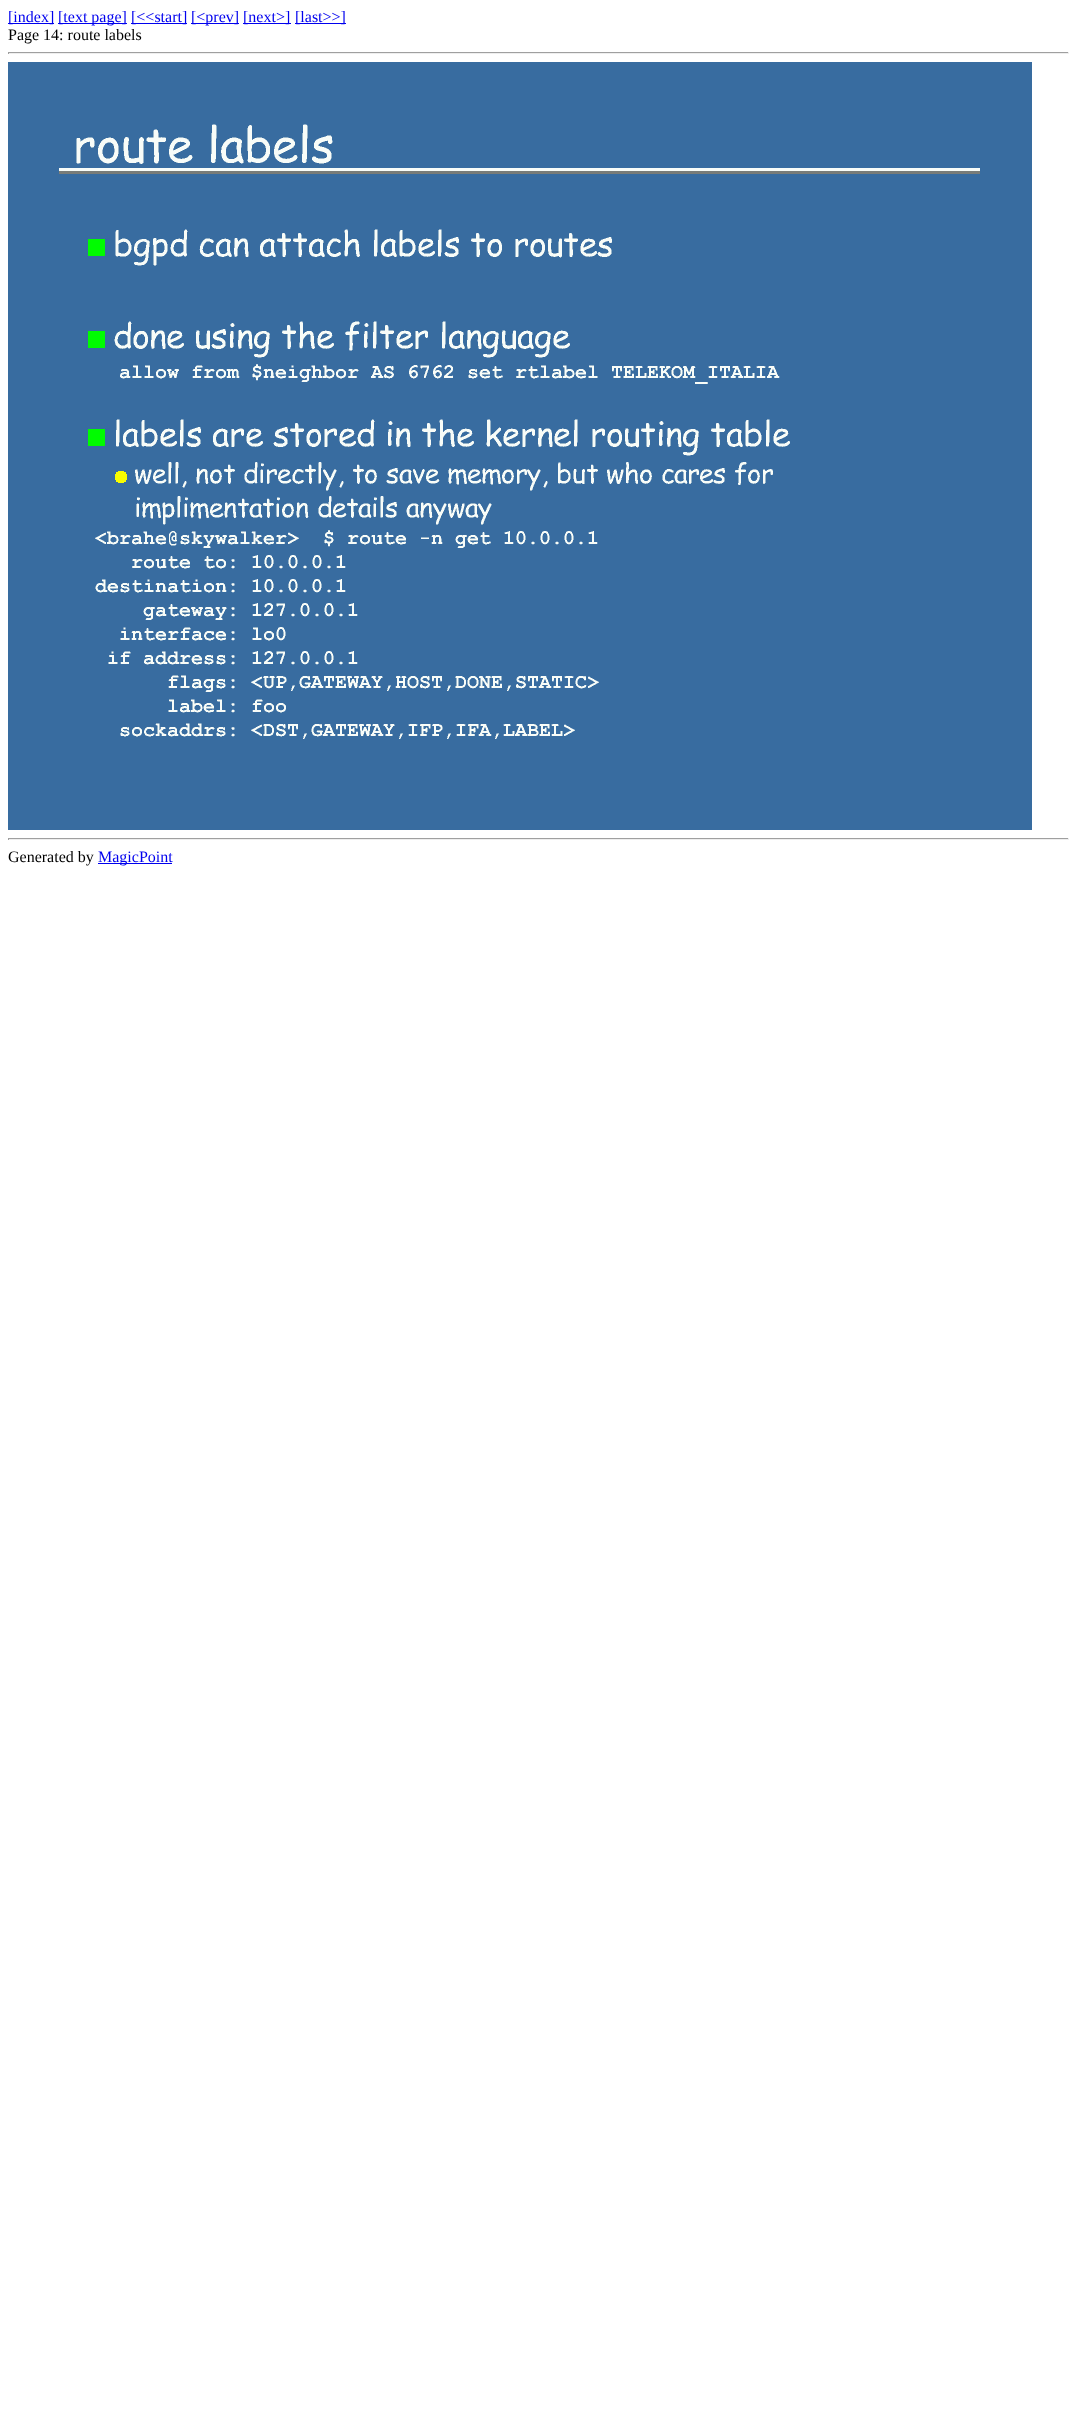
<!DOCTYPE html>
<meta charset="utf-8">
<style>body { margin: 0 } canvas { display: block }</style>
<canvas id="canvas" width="1077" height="2422"></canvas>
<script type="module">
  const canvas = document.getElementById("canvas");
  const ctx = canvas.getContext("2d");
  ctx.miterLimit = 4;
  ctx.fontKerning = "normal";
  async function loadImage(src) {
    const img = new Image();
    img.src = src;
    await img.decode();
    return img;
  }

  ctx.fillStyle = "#ffffff";
  ctx.fillRect(0, 0, 1077, 2422);
  ctx.fillStyle = "#0000ee";
  ctx.fillRect(8, 23, 46, 1);
  ctx.font = "16px Liberation Serif";
  ctx.fillText("[index]", 8, 22);
  ctx.fillRect(58, 23, 69, 1);
  ctx.fillText("[text page]", 58, 22);
  ctx.fillRect(131, 23, 56, 1);
  ctx.fillText("[<<start]", 131, 22);
  ctx.fillRect(191, 23, 48, 1);
  ctx.fillText("[<prev]", 191, 22);
  ctx.fillRect(243, 23, 48, 1);
  ctx.fillText("[next>]", 243, 22);
  ctx.fillRect(295, 23, 51, 1);
  ctx.fillText("[last>>]", 295, 22);
  ctx.fillStyle = "#000000";
  ctx.fillText("Page 14: route labels", 8, 40);
  ctx.fillStyle = "#9f9f9f";
  ctx.fillRect(8, 52, 1061, 1);
  ctx.fillStyle = "#eeeeee";
  ctx.fillRect(1068, 52, 1, 2);
  ctx.fillRect(8, 53, 1061, 1);
  ctx.fillStyle = "#9f9f9f";
  ctx.fillRect(8, 52, 1, 2);
  ctx.drawImage(await loadImage("img1.png"), 8, 62, 1024, 768);
  ctx.fillRect(8, 838, 1061, 1);
  ctx.fillStyle = "#eeeeee";
  ctx.fillRect(1068, 838, 1, 2);
  ctx.fillRect(8, 839, 1061, 1);
  ctx.fillStyle = "#9f9f9f";
  ctx.fillRect(8, 838, 1, 2);
  ctx.fillStyle = "#000000";
  ctx.fillText("Generated by", 8, 862);
  ctx.fillStyle = "#0000ee";
  ctx.fillRect(98, 863, 74, 1);
  ctx.fillText("MagicPoint", 98, 862);
</script>
